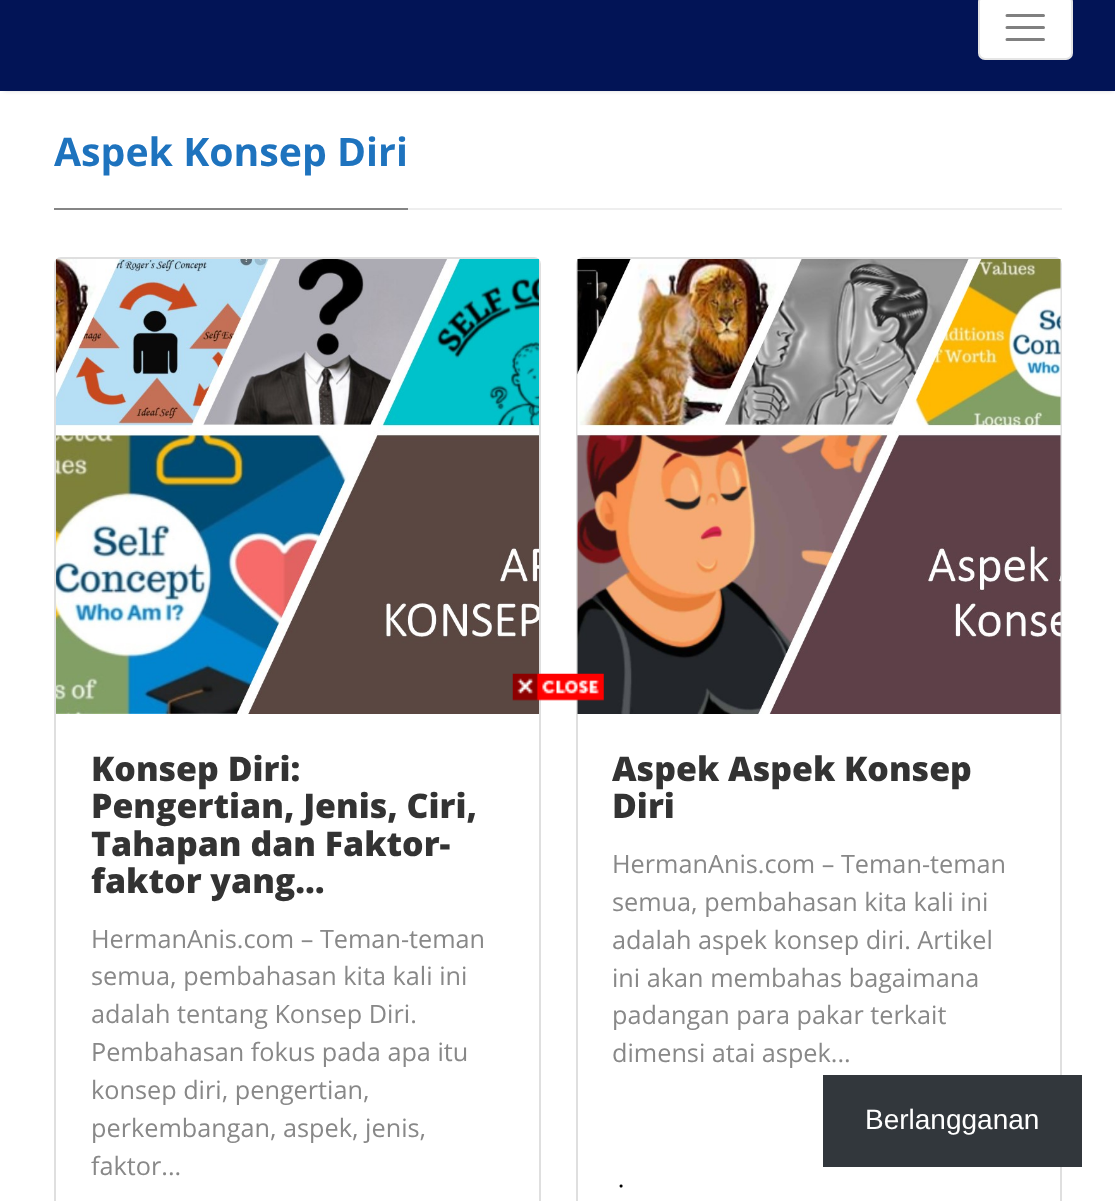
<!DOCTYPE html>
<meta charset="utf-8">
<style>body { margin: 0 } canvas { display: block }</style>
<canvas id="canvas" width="1115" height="1201"></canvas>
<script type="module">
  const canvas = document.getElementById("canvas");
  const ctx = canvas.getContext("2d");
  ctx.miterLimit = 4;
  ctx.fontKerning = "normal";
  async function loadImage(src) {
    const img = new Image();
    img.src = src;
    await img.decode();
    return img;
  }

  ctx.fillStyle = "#ffffff";
  ctx.fillRect(0, 0, 1115, 1201);
  ctx.fillStyle = "rgba(0, 0, 0, 0.15)";
  ctx.filter = "blur(2px)";
  ctx.beginPath();
  ctx.rect(4, 7, 1109, 84);
  ctx.fill();
  ctx.filter = "none";
  ctx.fillStyle = "#021456";
  ctx.fillRect(0, 0, 1115, 91);
  ctx.fillStyle = "#ffffff";
  ctx.beginPath();
  ctx.roundRect(978, -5, 95, 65, 7);
  ctx.fill();
  ctx.beginPath();
  ctx.roundRect(979, -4, 93, 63, 6);
  ctx.strokeStyle = "rgba(0, 0, 0, 0.1)";
  ctx.lineWidth = 2;
  ctx.stroke();
  ctx.beginPath();
  ctx.moveTo(1007, 15.5);
  ctx.lineTo(1043.5, 15.5);
  ctx.moveTo(1007, 27.5);
  ctx.lineTo(1043.5, 27.5);
  ctx.moveTo(1007, 39.5);
  ctx.lineTo(1043.5, 39.5);
  ctx.strokeStyle = "#808080";
  ctx.lineWidth = 3;
  ctx.lineCap = "round";
  ctx.stroke();
  ctx.fillStyle = "#eeeeee";
  ctx.fillRect(408, 208, 654, 2);
  ctx.fillStyle = "#858585";
  ctx.fillRect(54, 208, 354, 2);
  ctx.font = "bold 39.25px Open Sans";
  ctx.fillStyle = "#1e73be";
  ctx.fillText("Aspek Konsep Diri", 54, 166);
  ctx.beginPath();
  ctx.roundRect(55, 258, 485, 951, 6);
  ctx.strokeStyle = "#dfdfdf";
  ctx.lineWidth = 2;
  ctx.stroke();
  ctx.drawImage(await loadImage("img1.png"), 56, 259, 483, 455);
  ctx.font = "800 33.9px Open Sans";
  ctx.fillStyle = "#333333";
  ctx.fillText("Konsep Diri:", 91, 781);
  ctx.fillText("Pengertian, Jenis, Ciri,", 91, 818);
  ctx.fillText("Tahapan dan Faktor-", 91, 856);
  ctx.fillText("faktor yang…", 91, 893);
  ctx.font = "25.25px Open Sans";
  ctx.fillStyle = "#888888";
  ctx.fillText("HermanAnis.com – Teman-teman", 91, 948);
  ctx.fillText("semua, pembahasan kita kali ini", 91, 985);
  ctx.fillText("adalah tentang Konsep Diri.", 91, 1023);
  ctx.fillText("Pembahasan fokus pada apa itu", 91, 1061);
  ctx.fillText("konsep diri, pengertian,", 91, 1099);
  ctx.fillText("perkembangan, aspek, jenis,", 91, 1137);
  ctx.fillText("faktor...", 91, 1175);
  ctx.beginPath();
  ctx.roundRect(577, 258, 484, 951, 6);
  ctx.stroke();
  ctx.drawImage(await loadImage("img2.png"), 577, 259, 484, 455);
  ctx.font = "800 33.9px Open Sans";
  ctx.fillStyle = "#333333";
  ctx.fillText("Aspek Aspek Konsep", 612, 781);
  ctx.fillText("Diri", 612, 818);
  ctx.font = "25.25px Open Sans";
  ctx.fillStyle = "#888888";
  ctx.fillText("HermanAnis.com – Teman-teman", 612, 873);
  ctx.fillText("semua, pembahasan kita kali ini", 612, 911);
  ctx.fillText("adalah aspek konsep diri. Artikel", 612, 949);
  ctx.fillText("ini akan membahas bagaimana", 612, 987);
  ctx.fillText("padangan para pakar terkait", 612, 1024);
  ctx.fillText("dimensi atai aspek...", 612, 1062);
  ctx.font = "500 23px Open Sans";
  ctx.fillStyle = "#000000";
  ctx.fillText("·", 618, 1194);
  ctx.drawImage(await loadImage("img3.png"), 512, 673, 92, 28);
  ctx.fillStyle = "#32373c";
  ctx.fillRect(823, 1075, 259, 92);
  ctx.font = "28px Liberation Sans";
  ctx.fillStyle = "#ffffff";
  ctx.fillText("Berlangganan", 865, 1129);
</script>
